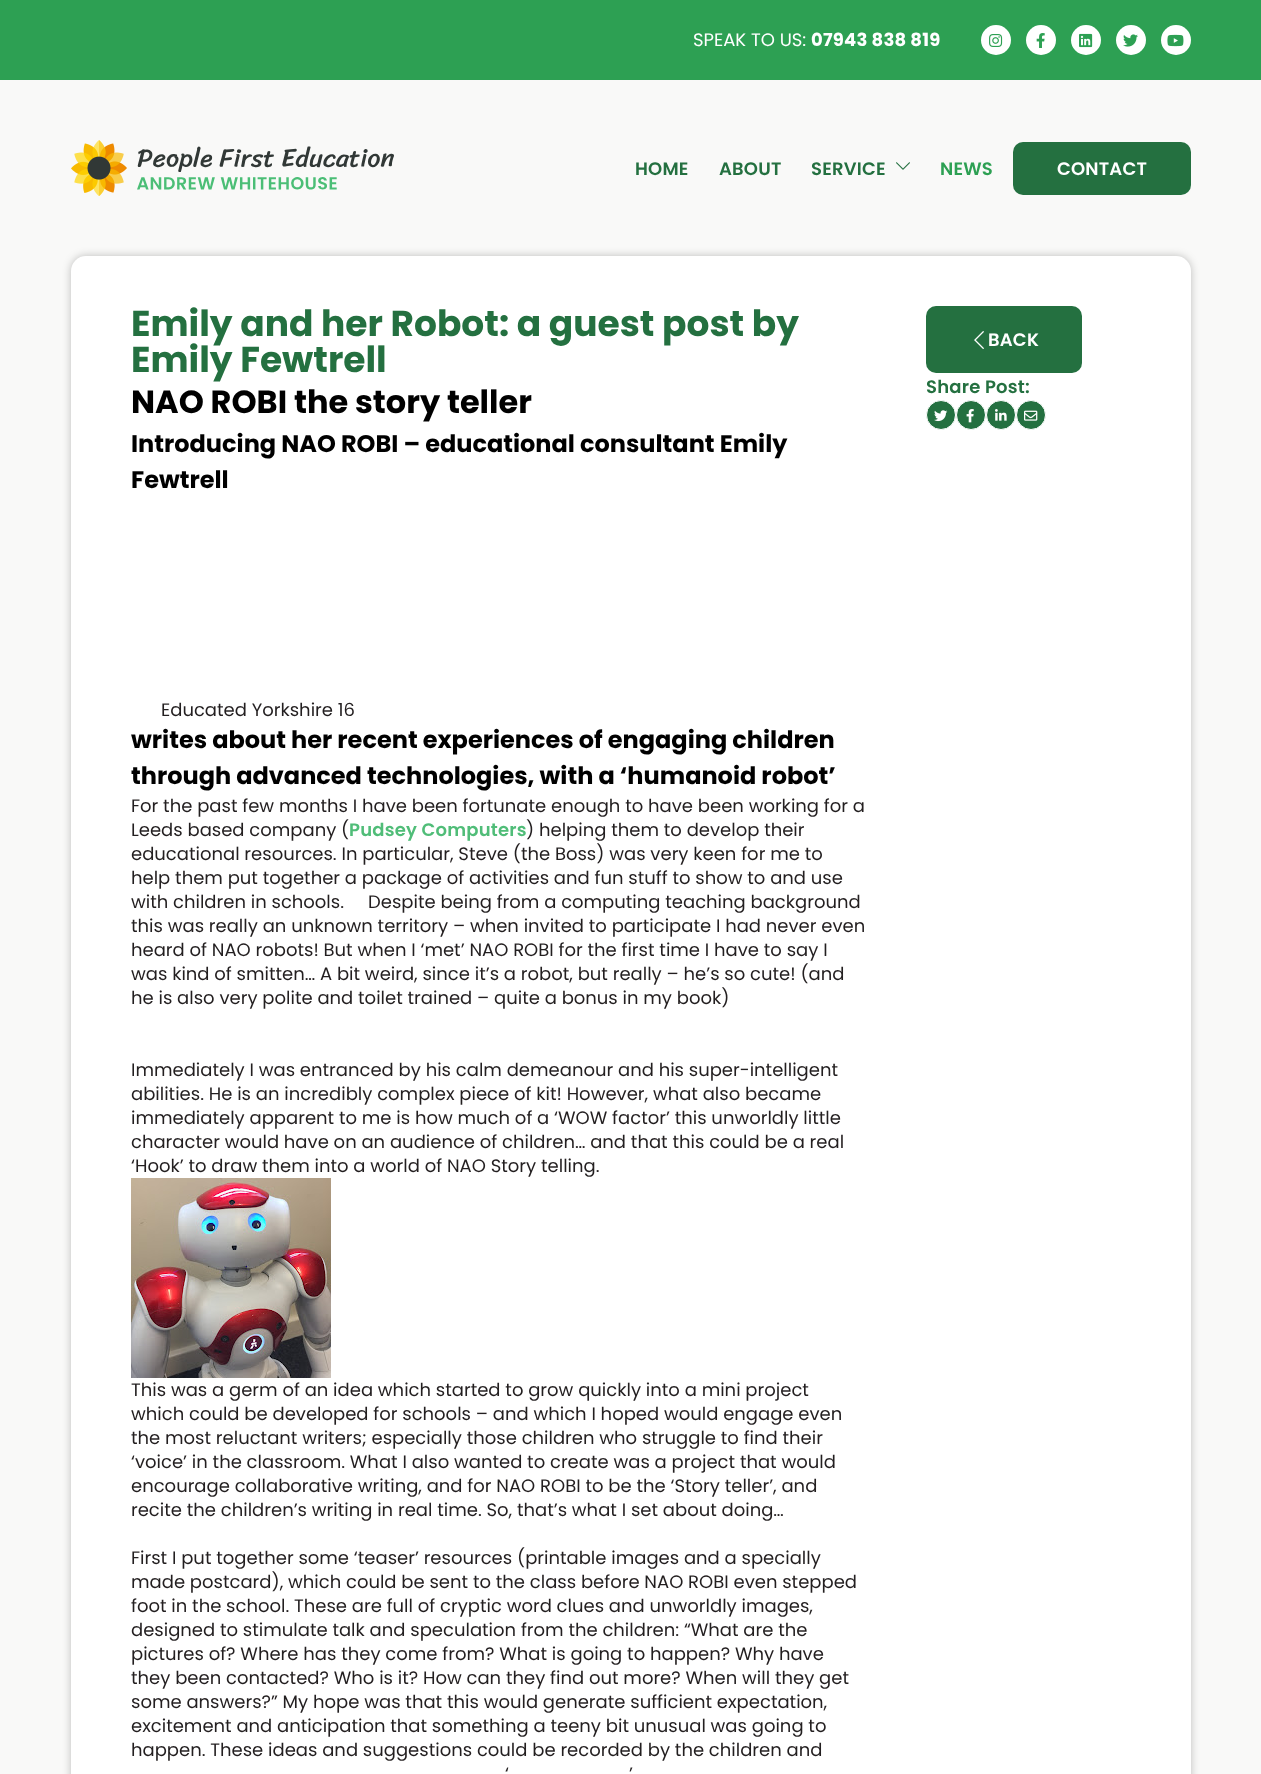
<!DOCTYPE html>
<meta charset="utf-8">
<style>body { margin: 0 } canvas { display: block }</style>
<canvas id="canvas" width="1261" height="1774"></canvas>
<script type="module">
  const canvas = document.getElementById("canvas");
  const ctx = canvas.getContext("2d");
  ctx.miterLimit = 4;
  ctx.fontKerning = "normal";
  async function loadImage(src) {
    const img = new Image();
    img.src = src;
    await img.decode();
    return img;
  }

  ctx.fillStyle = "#f9f9f8";
  ctx.fillRect(0, 0, 1261, 1774);
  ctx.fillStyle = "#2da053";
  ctx.fillRect(0, 0, 1261, 80);
  ctx.font = "18px Poppins";
  ctx.fillStyle = "#ffffff";
  ctx.fillText("SPEAK TO US:", 693, 46);
  ctx.letterSpacing = "0.2px";
  ctx.font = "bold 18px Poppins";
  ctx.fillText("07943 838 819", 811, 46);
  ctx.beginPath();
  ctx.arc(996, 40, 15, 0, Math.PI * 2);
  ctx.fill();
  ctx.drawImage(await loadImage("img1.png"), 989, 34, 14, 13);
  ctx.beginPath();
  ctx.arc(1041, 40, 15, 0, Math.PI * 2);
  ctx.fill();
  ctx.drawImage(await loadImage("img2.png"), 1036, 33, 9, 15);
  ctx.beginPath();
  ctx.arc(1086, 40, 15, 0, Math.PI * 2);
  ctx.fill();
  ctx.drawImage(await loadImage("img3.png"), 1079, 33, 14, 15);
  ctx.beginPath();
  ctx.arc(1131, 40, 15, 0, Math.PI * 2);
  ctx.fill();
  ctx.drawImage(await loadImage("img4.png"), 1123, 34, 15, 13);
  ctx.beginPath();
  ctx.arc(1176, 40, 15, 0, Math.PI * 2);
  ctx.fill();
  ctx.drawImage(await loadImage("img5.png"), 1167, 34, 17, 13);
  ctx.drawImage(await loadImage("img6.png"), 71, 140, 56, 56);
  ctx.drawImage(await loadImage("img7.png"), 137, 146, 257, 44);
  ctx.font = "600 18px Poppins";
  ctx.fillStyle = "#247040";
  ctx.fillText("HOME", 635, 175);
  ctx.fillText("ABOUT", 719, 175);
  ctx.fillText("SERVICE", 811, 175);
  ctx.drawImage(await loadImage("img8.png"), 896, 162, 14, 8);
  ctx.fillStyle = "#2da053";
  ctx.fillText("NEWS", 940, 175);
  ctx.fillStyle = "#247040";
  ctx.beginPath();
  ctx.roundRect(1013, 142, 178, 53, 10);
  ctx.fill();
  ctx.fillStyle = "#ffffff";
  ctx.fillText("CONTACT", 1057, 175);
  ctx.fillStyle = "rgba(0, 0, 0, 0.24)";
  ctx.filter = "blur(4px)";
  ctx.beginPath();
  ctx.roundRect(71, 256, 1120, 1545, 15);
  ctx.fill();
  ctx.filter = "none";
  ctx.fillStyle = "#ffffff";
  ctx.beginPath();
  ctx.roundRect(71, 256, 1120, 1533, 15);
  ctx.fill();
  ctx.letterSpacing = "0px";
  ctx.font = "bold 36px Poppins";
  ctx.fillStyle = "#247040";
  ctx.fillText("Emily and her Robot: a guest post by", 131, 336);
  ctx.fillText("Emily Fewtrell", 131, 372);
  ctx.font = "bold 32px Poppins";
  ctx.fillStyle = "#000000";
  ctx.fillText("NAO ROBI the story teller", 131, 413);
  ctx.font = "bold 24px Poppins";
  ctx.fillText("Introducing NAO ROBI – educational consultant Emily", 131, 452);
  ctx.fillText("Fewtrell", 131, 488);
  ctx.font = "18px Poppins";
  ctx.fillStyle = "#231f20";
  ctx.fillText("Educated Yorkshire 16", 161, 716);
  ctx.font = "bold 24px Poppins";
  ctx.fillStyle = "#000000";
  ctx.fillText("writes about her recent experiences of engaging children", 131, 748);
  ctx.fillText("through advanced technologies, with a ‘humanoid robot’", 131, 784);
  ctx.font = "18px Poppins";
  ctx.fillStyle = "#231f20";
  ctx.fillText("For the past few months I have been fortunate enough to have been working for a", 131, 812);
  ctx.fillText("Leeds based company (", 131, 836);
  ctx.letterSpacing = "0.2px";
  ctx.font = "600 18px Poppins";
  ctx.fillStyle = "#50bd78";
  ctx.fillText("Pudsey Computers", 349, 836);
  ctx.letterSpacing = "0px";
  ctx.font = "18px Poppins";
  ctx.fillStyle = "#231f20";
  ctx.fillText(") helping them to develop their", 526, 836);
  ctx.fillText("educational resources. In particular, Steve (the Boss) was very keen for me to", 131, 860);
  ctx.fillText("help them put together a package of activities and fun stuff to show to and use", 131, 884);
  ctx.fillText("with children in schools.     Despite being from a computing teaching background", 131, 908);
  ctx.fillText("this was really an unknown territory – when invited to participate I had never even", 131, 932);
  ctx.fillText("heard of NAO robots! But when I ‘met’ NAO ROBI for the first time I have to say I", 131, 956);
  ctx.fillText("was kind of smitten… A bit weird, since it’s a robot, but really – he’s so cute! (and", 131, 980);
  ctx.fillText("he is also very polite and toilet trained – quite a bonus in my book)", 131, 1004);
  ctx.fillText("Immediately I was entranced by his calm demeanour and his super-intelligent", 131, 1076);
  ctx.fillText("abilities. He is an incredibly complex piece of kit! However, what also became", 131, 1100);
  ctx.fillText("immediately apparent to me is how much of a ‘WOW factor’ this unworldly little", 131, 1124);
  ctx.fillText("character would have on an audience of children… and that this could be a real", 131, 1148);
  ctx.fillText("‘Hook’ to draw them into a world of NAO Story telling.", 131, 1172);
  ctx.drawImage(await loadImage("img9.png"), 131, 1178, 200, 200);
  ctx.fillText("This was a germ of an idea which started to grow quickly into a mini project", 131, 1396);
  ctx.fillText("which could be developed for schools – and which I hoped would engage even", 131, 1420);
  ctx.fillText("the most reluctant writers; especially those children who struggle to find their", 131, 1444);
  ctx.fillText("‘voice’ in the classroom. What I also wanted to create was a project that would", 131, 1468);
  ctx.fillText("encourage collaborative writing, and for NAO ROBI to be the ‘Story teller’, and", 131, 1492);
  ctx.fillText("recite the children’s writing in real time. So, that’s what I set about doing…", 131, 1516);
  ctx.fillText("First I put together some ‘teaser’ resources (printable images and a specially", 131, 1564);
  ctx.fillText("made postcard), which could be sent to the class before NAO ROBI even stepped", 131, 1588);
  ctx.fillText("foot in the school. These are full of cryptic word clues and unworldly images,", 131, 1612);
  ctx.fillText("designed to stimulate talk and speculation from the children: “What are the", 131, 1636);
  ctx.fillText("pictures of? Where has they come from? What is going to happen? Why have", 131, 1660);
  ctx.fillText("they been contacted? Who is it? How can they find out more? When will they get", 131, 1684);
  ctx.fillText("some answers?” My hope was that this would generate sufficient expectation,", 131, 1708);
  ctx.fillText("excitement and anticipation that something a teeny bit unusual was going to", 131, 1732);
  ctx.fillText("happen. These ideas and suggestions could be recorded by the children and", 131, 1756);
  ctx.fillText("‘", 505, 1780);
  ctx.fillText("’", 629, 1780);
  ctx.fillStyle = "#247040";
  ctx.beginPath();
  ctx.roundRect(926, 306, 156, 67, 10);
  ctx.fill();
  ctx.drawImage(await loadImage("img10.png"), 974, 331, 10, 18);
  ctx.letterSpacing = "0.2px";
  ctx.font = "600 18px Poppins";
  ctx.fillStyle = "#ffffff";
  ctx.fillText("BACK", 988, 346);
  ctx.fillStyle = "#247040";
  ctx.fillText("Share Post:", 926, 393);
  ctx.beginPath();
  ctx.arc(941, 415, 14.5, 0, Math.PI * 2);
  ctx.fill();
  ctx.strokeStyle = "#ffffff";
  ctx.stroke();
  ctx.drawImage(await loadImage("img11.png"), 934, 410, 14, 12);
  ctx.beginPath();
  ctx.arc(971, 415, 14.5, 0, Math.PI * 2);
  ctx.fill();
  ctx.stroke();
  ctx.drawImage(await loadImage("img12.png"), 966, 409, 8, 14);
  ctx.beginPath();
  ctx.arc(1001, 415, 14.5, 0, Math.PI * 2);
  ctx.fill();
  ctx.stroke();
  ctx.drawImage(await loadImage("img13.png"), 995, 409, 12, 12);
  ctx.beginPath();
  ctx.arc(1031, 415, 14.5, 0, Math.PI * 2);
  ctx.fill();
  ctx.stroke();
  ctx.drawImage(await loadImage("img14.png"), 1024, 410, 14, 11);
</script>
